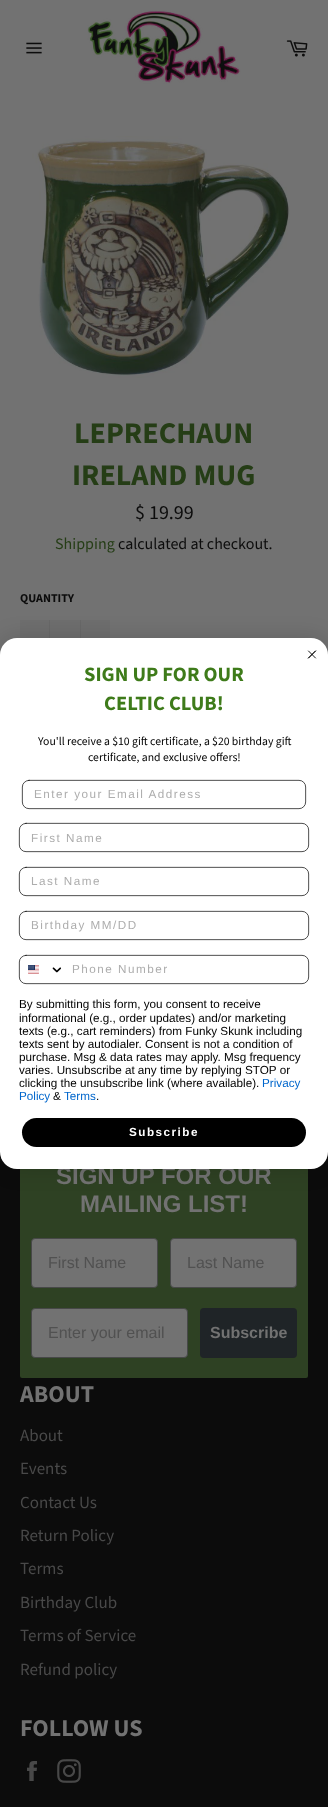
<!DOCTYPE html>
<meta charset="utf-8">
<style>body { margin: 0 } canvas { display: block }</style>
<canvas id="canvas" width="328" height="1807"></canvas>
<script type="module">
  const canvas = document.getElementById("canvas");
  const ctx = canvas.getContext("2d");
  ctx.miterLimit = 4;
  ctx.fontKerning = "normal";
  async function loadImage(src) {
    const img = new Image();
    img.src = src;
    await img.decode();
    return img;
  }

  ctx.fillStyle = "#727272";
  ctx.fillRect(0, 0, 328, 1807);
  ctx.drawImage(await loadImage("img1.png"), 26, 42, 16, 12);
  ctx.drawImage(await loadImage("img2.png"), 87, 10, 154, 74);
  ctx.drawImage(await loadImage("img3.png"), 286, 40, 22, 17);
  ctx.drawImage(await loadImage("img4.png"), 32, 136, 258, 242);
  ctx.font = "bold 30px Source Sans Pro";
  ctx.fillStyle = "#253d16";
  ctx.fillText("LEPRECHAUN", 74, 443);
  ctx.fillText("IRELAND MUG", 72, 485);
  ctx.font = "20px Source Sans Pro";
  ctx.fillStyle = "#0c0c0c";
  ctx.fillText("$ 19.99", 135, 519);
  ctx.font = "16px Source Sans Pro";
  ctx.fillStyle = "#253d16";
  ctx.fillText("Shipping", 55, 549);
  ctx.fillStyle = "#0c0c0c";
  ctx.fillText("calculated at checkout.", 118, 549);
  ctx.font = "bold 12px Source Sans Pro";
  ctx.fillText("QUANTITY", 20, 602);
  ctx.fillStyle = "#6e6e6e";
  ctx.fillRect(20, 620, 90, 18);
  ctx.fillStyle = "#686868";
  ctx.fillRect(49, 620, 1, 18);
  ctx.fillRect(80, 620, 1, 18);
  ctx.fillStyle = "#0c0c0c";
  ctx.fillRect(0, 1152, 328, 655);
  ctx.fillStyle = "#2e4123";
  ctx.beginPath();
  ctx.roundRect(20, 1142, 288, 236, 2);
  ctx.fill();
  ctx.font = "bold 24px Liberation Sans";
  ctx.fillStyle = "#727272";
  ctx.fillText("SIGN UP FOR OUR", 56, 1184);
  ctx.fillText("MAILING LIST!", 80, 1212);
  ctx.beginPath();
  ctx.roundRect(31.5, 1238.5, 126, 49, 3.5);
  ctx.fill();
  ctx.strokeStyle = "#474848";
  ctx.stroke();
  ctx.font = "16px Liberation Sans";
  ctx.fillStyle = "#515151";
  ctx.fillText("First Name", 48, 1268);
  ctx.fillStyle = "#727272";
  ctx.beginPath();
  ctx.roundRect(170.5, 1238.5, 126, 49, 3.5);
  ctx.fill();
  ctx.stroke();
  ctx.fillStyle = "#515151";
  ctx.fillText("Last Name", 187, 1268);
  ctx.fillStyle = "#727272";
  ctx.beginPath();
  ctx.roundRect(31.5, 1308.5, 156, 49, 3.5);
  ctx.fill();
  ctx.stroke();
  ctx.fillStyle = "#515151";
  ctx.fillText("Enter your email", 48, 1338);
  ctx.fillStyle = "#1f2427";
  ctx.beginPath();
  ctx.roundRect(200, 1308, 97, 50, 4);
  ctx.fill();
  ctx.font = "bold 16px Liberation Sans";
  ctx.fillStyle = "#727272";
  ctx.fillText("Subscribe", 210, 1338);
  ctx.font = "bold 24px Source Sans Pro";
  ctx.fillText("ABOUT", 20, 1402);
  ctx.font = "17px Source Sans Pro";
  ctx.fillStyle = "#494949";
  ctx.fillText("About", 20, 1441);
  ctx.fillText("Events", 20, 1474);
  ctx.fillText("Contact Us", 20, 1508);
  ctx.fillText("Return Policy", 20, 1541);
  ctx.fillText("Terms", 20, 1574);
  ctx.fillText("Birthday Club", 20, 1608);
  ctx.fillText("Terms of Service", 20, 1641);
  ctx.fillText("Refund policy", 20, 1675);
  ctx.font = "bold 24px Source Sans Pro";
  ctx.fillStyle = "#727272";
  ctx.fillText("FOLLOW US", 20, 1736);
  ctx.drawImage(await loadImage("img5.png"), 27, 1761, 10, 20);
  ctx.drawImage(await loadImage("img6.png"), 57, 1759, 24, 24);
  ctx.fillStyle = "rgba(0, 0, 0, 0.15)";
  ctx.filter = "blur(11px)";
  ctx.beginPath();
  ctx.roundRect(0, 638, 328, 531, 17);
  ctx.fill();
  ctx.filter = "none";
  ctx.fillStyle = "#ffffff";
  ctx.beginPath();
  ctx.roundRect(0, 638, 328, 531, 17);
  ctx.fill();
  ctx.beginPath();
  ctx.moveTo(308.5, 651);
  ctx.lineTo(315.5, 658);
  ctx.moveTo(308.5, 658);
  ctx.lineTo(315.5, 651);
  ctx.closePath();
  ctx.strokeStyle = "#000000";
  ctx.lineWidth = 0.9;
  ctx.lineCap = "round";
  ctx.lineJoin = "round";
  ctx.stroke();
  ctx.font = "bold 20.5px Source Sans Pro";
  ctx.fillStyle = "#3e7b1a";
  ctx.fillText("SIGN UP FOR OUR", 84, 681);
  ctx.fillText("CELTIC CLUB!", 104, 710);
  ctx.font = "11.7px Source Sans Pro";
  ctx.fillStyle = "#000000";
  ctx.fillText("You'll receive a $10 gift certificate, a $20 birthday gift", 38, 745);
  ctx.fillText("certificate, and exclusive offers!", 88, 761);
  ctx.beginPath();
  ctx.roundRect(22.35, 780.35, 283.3, 28.3, 6.65);
  ctx.lineWidth = 0.7;
  ctx.lineJoin = "miter";
  ctx.stroke();
  ctx.letterSpacing = "1.5px";
  ctx.font = "11.7px Liberation Sans";
  ctx.fillStyle = "#adadad";
  ctx.fillText("Enter your Email Address", 34, 798);
  ctx.beginPath();
  ctx.roundRect(19.35, 823.35, 289.3, 28.3, 6.65);
  ctx.stroke();
  ctx.fillText("First Name", 31, 842);
  ctx.beginPath();
  ctx.roundRect(19.35, 867.35, 289.3, 28.3, 6.65);
  ctx.stroke();
  ctx.fillText("Last Name", 31, 885);
  ctx.beginPath();
  ctx.roundRect(19.35, 911.35, 289.3, 28.3, 6.65);
  ctx.stroke();
  ctx.fillText("Birthday MM/DD", 31, 929);
  ctx.beginPath();
  ctx.roundRect(19.35, 955.35, 289.3, 28.3, 6.65);
  ctx.stroke();
  ctx.drawImage(await loadImage("img7.png"), 28, 965, 11, 9);
  ctx.drawImage(await loadImage("img8.png"), 52, 967, 9, 6);
  ctx.fillText("Phone Number", 72, 973);
  ctx.letterSpacing = "0px";
  ctx.fillStyle = "#000000";
  ctx.fillText("By submitting this form, you consent to receive", 19, 1008);
  ctx.fillText("informational (e.g., order updates) and/or marketing", 19, 1022);
  ctx.fillText("texts (e.g., cart reminders) from Funky Skunk including", 19, 1035);
  ctx.fillText("texts sent by autodialer. Consent is not a condition of", 19, 1048);
  ctx.fillText("purchase. Msg & data rates may apply. Msg frequency", 19, 1061);
  ctx.fillText("varies. Unsubscribe at any time by replying STOP or", 19, 1074);
  ctx.fillText("clicking the unsubscribe link (where available).", 19, 1087);
  ctx.fillStyle = "#0066cc";
  ctx.fillText("Privacy", 262, 1087);
  ctx.fillText("Policy", 19, 1100);
  ctx.fillStyle = "#000000";
  ctx.fillText("&", 53, 1100);
  ctx.fillStyle = "#0066cc";
  ctx.fillText("Terms", 64, 1100);
  ctx.fillStyle = "#000000";
  ctx.fillText(".", 96, 1100);
  ctx.beginPath();
  ctx.roundRect(22, 1118, 284, 29, 14.5);
  ctx.fill();
  ctx.letterSpacing = "1.5px";
  ctx.font = "bold 11.7px Liberation Sans";
  ctx.fillStyle = "#ffffff";
  ctx.fillText("Subscribe", 129, 1136);
</script>
